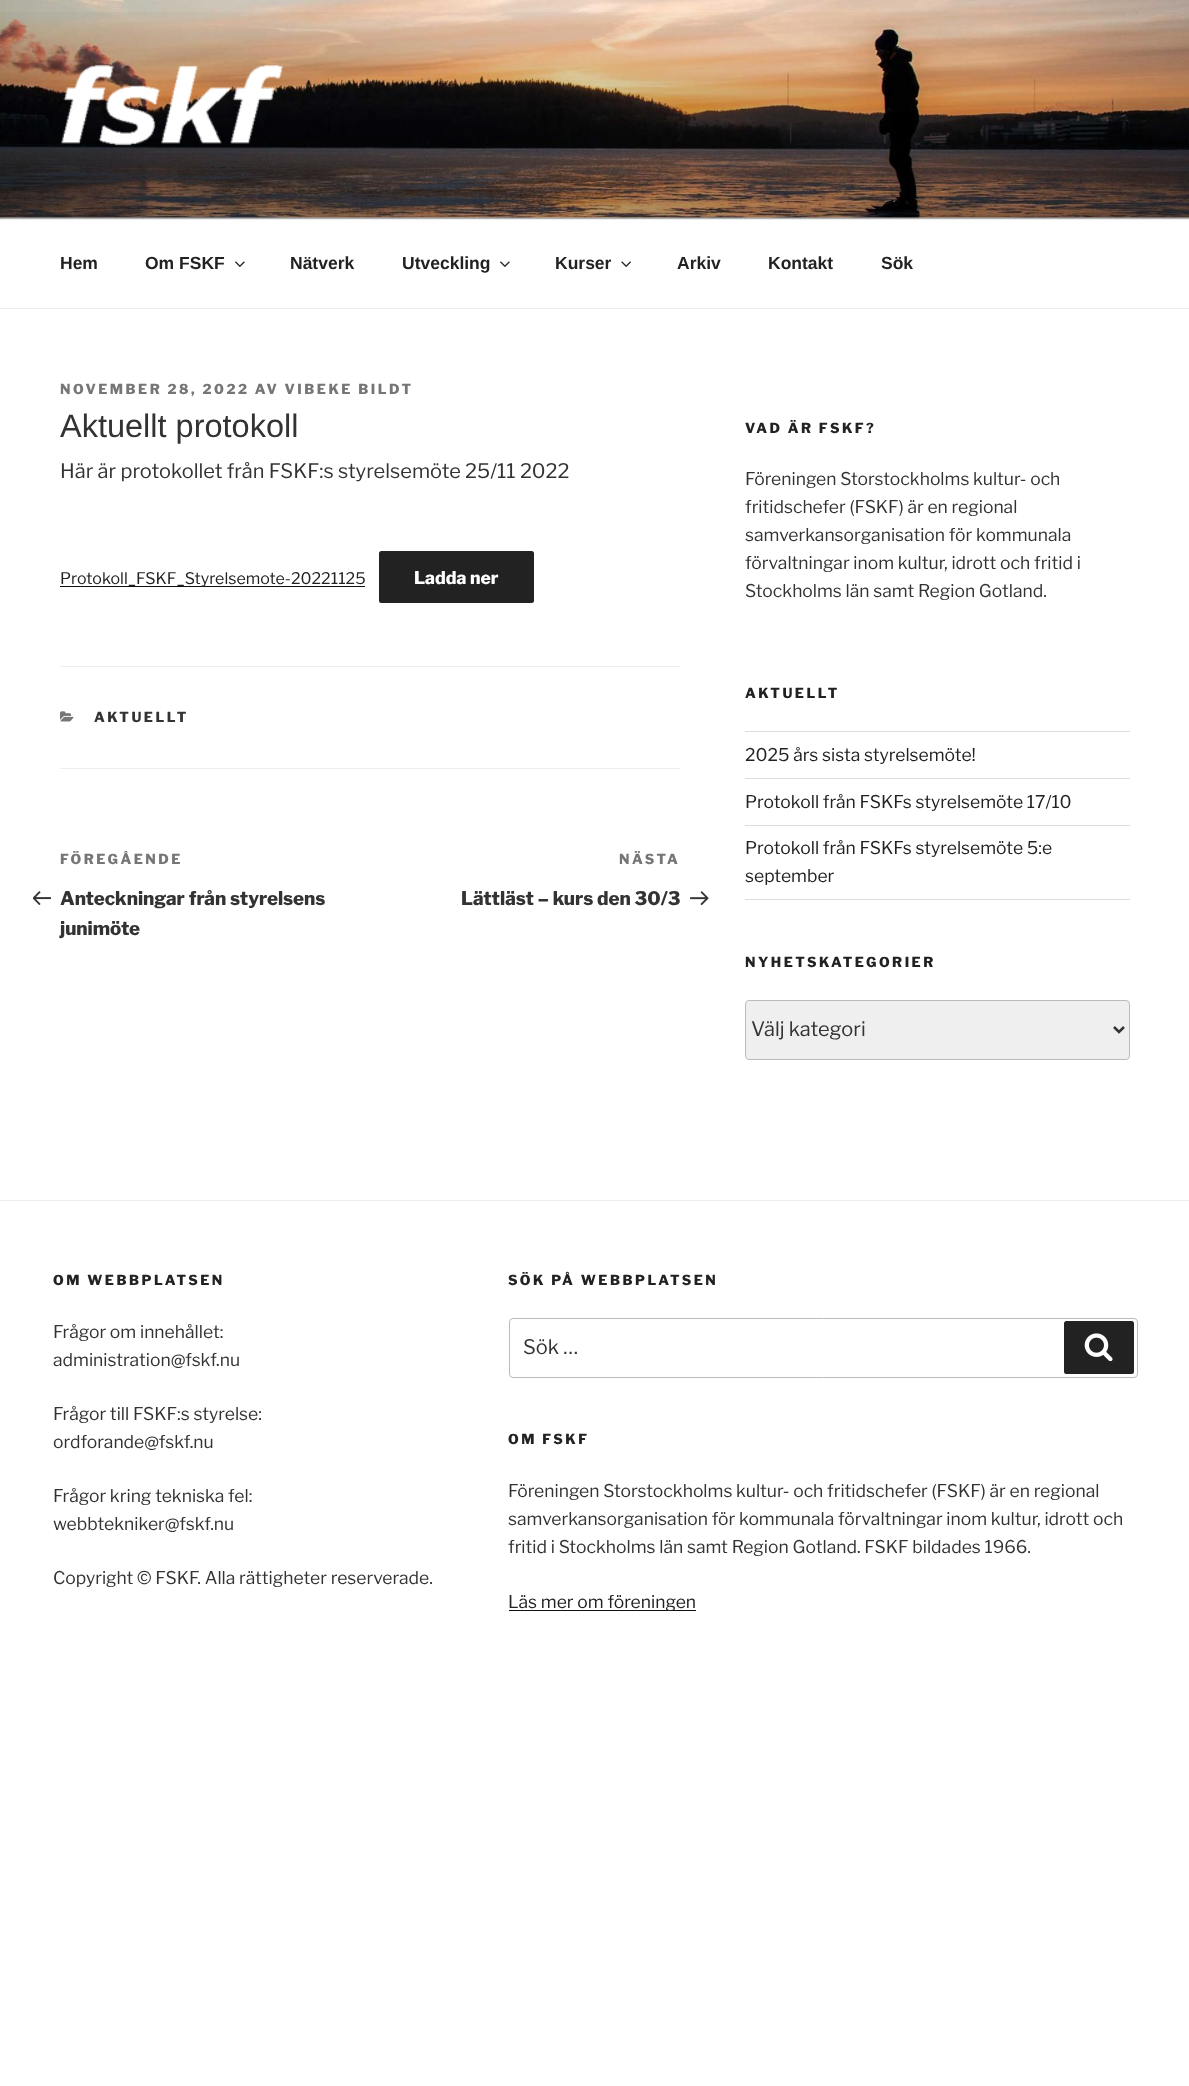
<!DOCTYPE html>
<meta charset="utf-8">
<style>body { margin: 0 } canvas { display: block }</style>
<canvas id="canvas" width="1189" height="2086"></canvas>
<script type="module">
  const canvas = document.getElementById("canvas");
  const ctx = canvas.getContext("2d");
  ctx.miterLimit = 4;
  ctx.fontKerning = "normal";
  async function loadImage(src) {
    const img = new Image();
    img.src = src;
    await img.decode();
    return img;
  }
  let gradient;

  ctx.fillStyle = "#ffffff";
  ctx.fillRect(0, 0, 1189, 2086);
  ctx.fillStyle = "#fafafa";
  ctx.fillRect(0, 217, 1189, 2);
  ctx.drawImage(await loadImage("img1.png"), 0, 0, 1189, 218);
  gradient = ctx.createLinearGradient(595, 0, 595, 219);
  gradient.addColorStop(0, "rgba(0, 0, 0, 0)");
  gradient.addColorStop(0.75, "rgba(0, 0, 0, 0.3)");
  gradient.addColorStop(1, "rgba(0, 0, 0, 0.3)");
  ctx.fillStyle = gradient;
  ctx.fillRect(0, 12, 1189, 207);
  ctx.drawImage(await loadImage("img2.png"), 61, 64, 222, 82);
  ctx.fillStyle = "#eeeeee";
  ctx.fillRect(0, 219, 1189, 1);
  ctx.fillRect(0, 308, 1189, 1);
  ctx.font = "bold 17.5px Liberation Sans";
  ctx.fillStyle = "#222222";
  ctx.fillText("Hem", 60, 269);
  ctx.fillText("Om FSKF", 145, 269);
  ctx.drawImage(await loadImage("img3.png"), 235, 261, 10, 6);
  ctx.fillText("Nätverk", 290, 269);
  ctx.fillText("Utveckling", 402, 269);
  ctx.drawImage(await loadImage("img3.png"), 500, 261, 10, 6);
  ctx.fillText("Kurser", 555, 269);
  ctx.drawImage(await loadImage("img4.png"), 621, 261, 10, 6);
  ctx.fillText("Arkiv", 677, 269);
  ctx.fillText("Kontakt", 768, 269);
  ctx.fillText("Sök", 881, 269);
  ctx.letterSpacing = "2.5px";
  ctx.font = "100 13.75px Libre Franklin";
  ctx.fillStyle = "#767676";
  ctx.fillText("NOVEMBER 28, 2022 AV VIBEKE BILDT", 60, 394);
  ctx.letterSpacing = "0px";
  ctx.font = "32.5px Liberation Sans";
  ctx.fillStyle = "#333333";
  ctx.fillText("Aktuellt protokoll", 60, 437);
  ctx.font = "100 20px 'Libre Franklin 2'";
  ctx.fillText("Här är protokollet från FSKF:s styrelsemöte 25/11 2022", 60, 478);
  ctx.fillStyle = "#0f0f0f";
  ctx.fillRect(60, 586, 305, 1);
  ctx.font = "100 16px 'Libre Franklin 2'";
  ctx.fillStyle = "#222222";
  ctx.fillText("Protokoll_FSKF_Styrelsemote-20221125", 60, 584);
  ctx.beginPath();
  ctx.roundRect(379, 551, 155, 52, 2.5);
  ctx.fill();
  ctx.font = "100 17.5px Libre Franklin";
  ctx.fillStyle = "#ffffff";
  ctx.fillText("Ladda ner", 414, 584);
  ctx.fillStyle = "#eeeeee";
  ctx.fillRect(60, 666, 620, 1);
  ctx.fillRect(60, 768, 620, 1);
  ctx.drawImage(await loadImage("img5.png"), 60, 711, 14, 11);
  ctx.letterSpacing = "2.5px";
  ctx.font = "100 13.75px Libre Franklin";
  ctx.fillStyle = "#333333";
  ctx.fillText("AKTUELLT", 94, 722);
  ctx.fillStyle = "#767676";
  ctx.fillText("FÖREGÅENDE", 60, 864);
  ctx.drawImage(await loadImage("img6.png"), 33, 891, 18, 14);
  ctx.letterSpacing = "0px";
  ctx.font = "100 18.75px Libre Franklin";
  ctx.fillStyle = "#333333";
  ctx.fillText("Anteckningar från styrelsens", 60, 905);
  ctx.fillText("junimöte", 60, 935);
  ctx.letterSpacing = "2.5px";
  ctx.font = "100 13.75px Libre Franklin";
  ctx.fillStyle = "#767676";
  ctx.fillText("NÄSTA", 619, 864);
  ctx.letterSpacing = "0px";
  ctx.font = "100 18.75px Libre Franklin";
  ctx.fillStyle = "#333333";
  ctx.fillText("Lättläst – kurs den 30/3", 461, 905);
  ctx.drawImage(await loadImage("img7.png"), 690, 891, 19, 15);
  ctx.letterSpacing = "2.5px";
  ctx.font = "100 13.75px Libre Franklin";
  ctx.fillStyle = "#222222";
  ctx.fillText("VAD ÄR FSKF?", 745, 433);
  ctx.letterSpacing = "0px";
  ctx.font = "100 17.5px 'Libre Franklin 2'";
  ctx.fillStyle = "#333333";
  ctx.fillText("Föreningen Storstockholms kultur- och", 745, 485);
  ctx.fillText("fritidschefer (FSKF) är en regional", 745, 513);
  ctx.fillText("samverkansorganisation för kommunala", 745, 541);
  ctx.fillText("förvaltningar inom kultur, idrott och fritid i", 745, 569);
  ctx.fillText("Stockholms län samt Region Gotland.", 745, 597);
  ctx.letterSpacing = "2.5px";
  ctx.font = "100 13.75px Libre Franklin";
  ctx.fillStyle = "#222222";
  ctx.fillText("AKTUELLT", 745, 698);
  ctx.fillStyle = "#dddddd";
  ctx.fillRect(745, 731, 385, 1);
  ctx.fillRect(745, 778, 385, 1);
  ctx.letterSpacing = "0px";
  ctx.font = "100 17.5px 'Libre Franklin 2'";
  ctx.fillStyle = "#222222";
  ctx.fillText("2025 års sista styrelsemöte!", 745, 761);
  ctx.fillStyle = "#dddddd";
  ctx.fillRect(745, 825, 385, 1);
  ctx.fillStyle = "#222222";
  ctx.fillText("Protokoll från FSKFs styrelsemöte 17/10", 745, 808);
  ctx.fillStyle = "#dddddd";
  ctx.fillRect(745, 899, 385, 1);
  ctx.fillStyle = "#222222";
  ctx.fillText("Protokoll från FSKFs styrelsemöte 5:e", 745, 854);
  ctx.fillText("september", 745, 882);
  ctx.letterSpacing = "2.5px";
  ctx.font = "100 13.75px Libre Franklin";
  ctx.fillText("NYHETSKATEGORIER", 745, 967);
  ctx.fillStyle = "#efefef";
  ctx.beginPath();
  ctx.roundRect(745.5, 1000.5, 384, 59, 3.5);
  ctx.fill();
  ctx.strokeStyle = "#bbbbbb";
  ctx.stroke();
  ctx.beginPath();
  ctx.moveTo(1114, 1027);
  ctx.lineTo(1119, 1032);
  ctx.lineTo(1124, 1027);
  ctx.strokeStyle = "#333333";
  ctx.lineWidth = 2.5;
  ctx.stroke();
  ctx.letterSpacing = "0px";
  ctx.font = "100 20px 'Libre Franklin 2'";
  ctx.fillStyle = "#333333";
  ctx.fillText("Välj kategori", 751, 1036);
  ctx.fillStyle = "#eeeeee";
  ctx.fillRect(0, 1200, 1189, 1);
  ctx.letterSpacing = "2.5px";
  ctx.font = "100 13.75px Libre Franklin";
  ctx.fillStyle = "#222222";
  ctx.fillText("OM WEBBPLATSEN", 53, 1285);
  ctx.letterSpacing = "0px";
  ctx.font = "100 17.5px 'Libre Franklin 2'";
  ctx.fillStyle = "#333333";
  ctx.fillText("Frågor om innehållet:", 53, 1338);
  ctx.fillText("administration@fskf.nu", 53, 1366);
  ctx.fillText("Frågor till FSKF:s styrelse:", 53, 1420);
  ctx.fillText("ordforande@fskf.nu", 53, 1448);
  ctx.fillText("Frågor kring tekniska fel:", 53, 1502);
  ctx.fillText("webbtekniker@fskf.nu", 53, 1530);
  ctx.fillText("Copyright © FSKF. Alla rättigheter reserverade.", 53, 1584);
  ctx.letterSpacing = "2.5px";
  ctx.font = "100 13.75px Libre Franklin";
  ctx.fillStyle = "#222222";
  ctx.fillText("SÖK PÅ WEBBPLATSEN", 508, 1285);
  ctx.beginPath();
  ctx.roundRect(509.5, 1318.5, 628, 59, 3.5);
  ctx.strokeStyle = "#bbbbbb";
  ctx.lineWidth = 1;
  ctx.stroke();
  ctx.letterSpacing = "0px";
  ctx.font = "100 20px 'Libre Franklin 2'";
  ctx.fillStyle = "#333333";
  ctx.fillText("Sök …", 523, 1354);
  ctx.fillStyle = "#222222";
  ctx.beginPath();
  ctx.roundRect(1064, 1321, 70, 53, 2.5);
  ctx.fill();
  ctx.drawImage(await loadImage("img8.png"), 1084, 1333, 29, 28);
  ctx.letterSpacing = "2.5px";
  ctx.font = "100 13.75px Libre Franklin";
  ctx.fillText("OM FSKF", 508, 1444);
  ctx.letterSpacing = "0px";
  ctx.font = "100 17.5px 'Libre Franklin 2'";
  ctx.fillStyle = "#333333";
  ctx.fillText("Föreningen Storstockholms kultur- och fritidschefer (FSKF) är en regional", 508, 1497);
  ctx.fillText("samverkansorganisation för kommunala förvaltningar inom kultur, idrott och", 508, 1525);
  ctx.fillText("fritid i Stockholms län samt Region Gotland. FSKF bildades 1966.", 508, 1553);
  ctx.fillStyle = "#0f0f0f";
  ctx.fillRect(509, 1610, 187, 1);
  ctx.fillStyle = "#222222";
  ctx.fillText("Läs mer om föreningen", 508, 1608);
</script>
